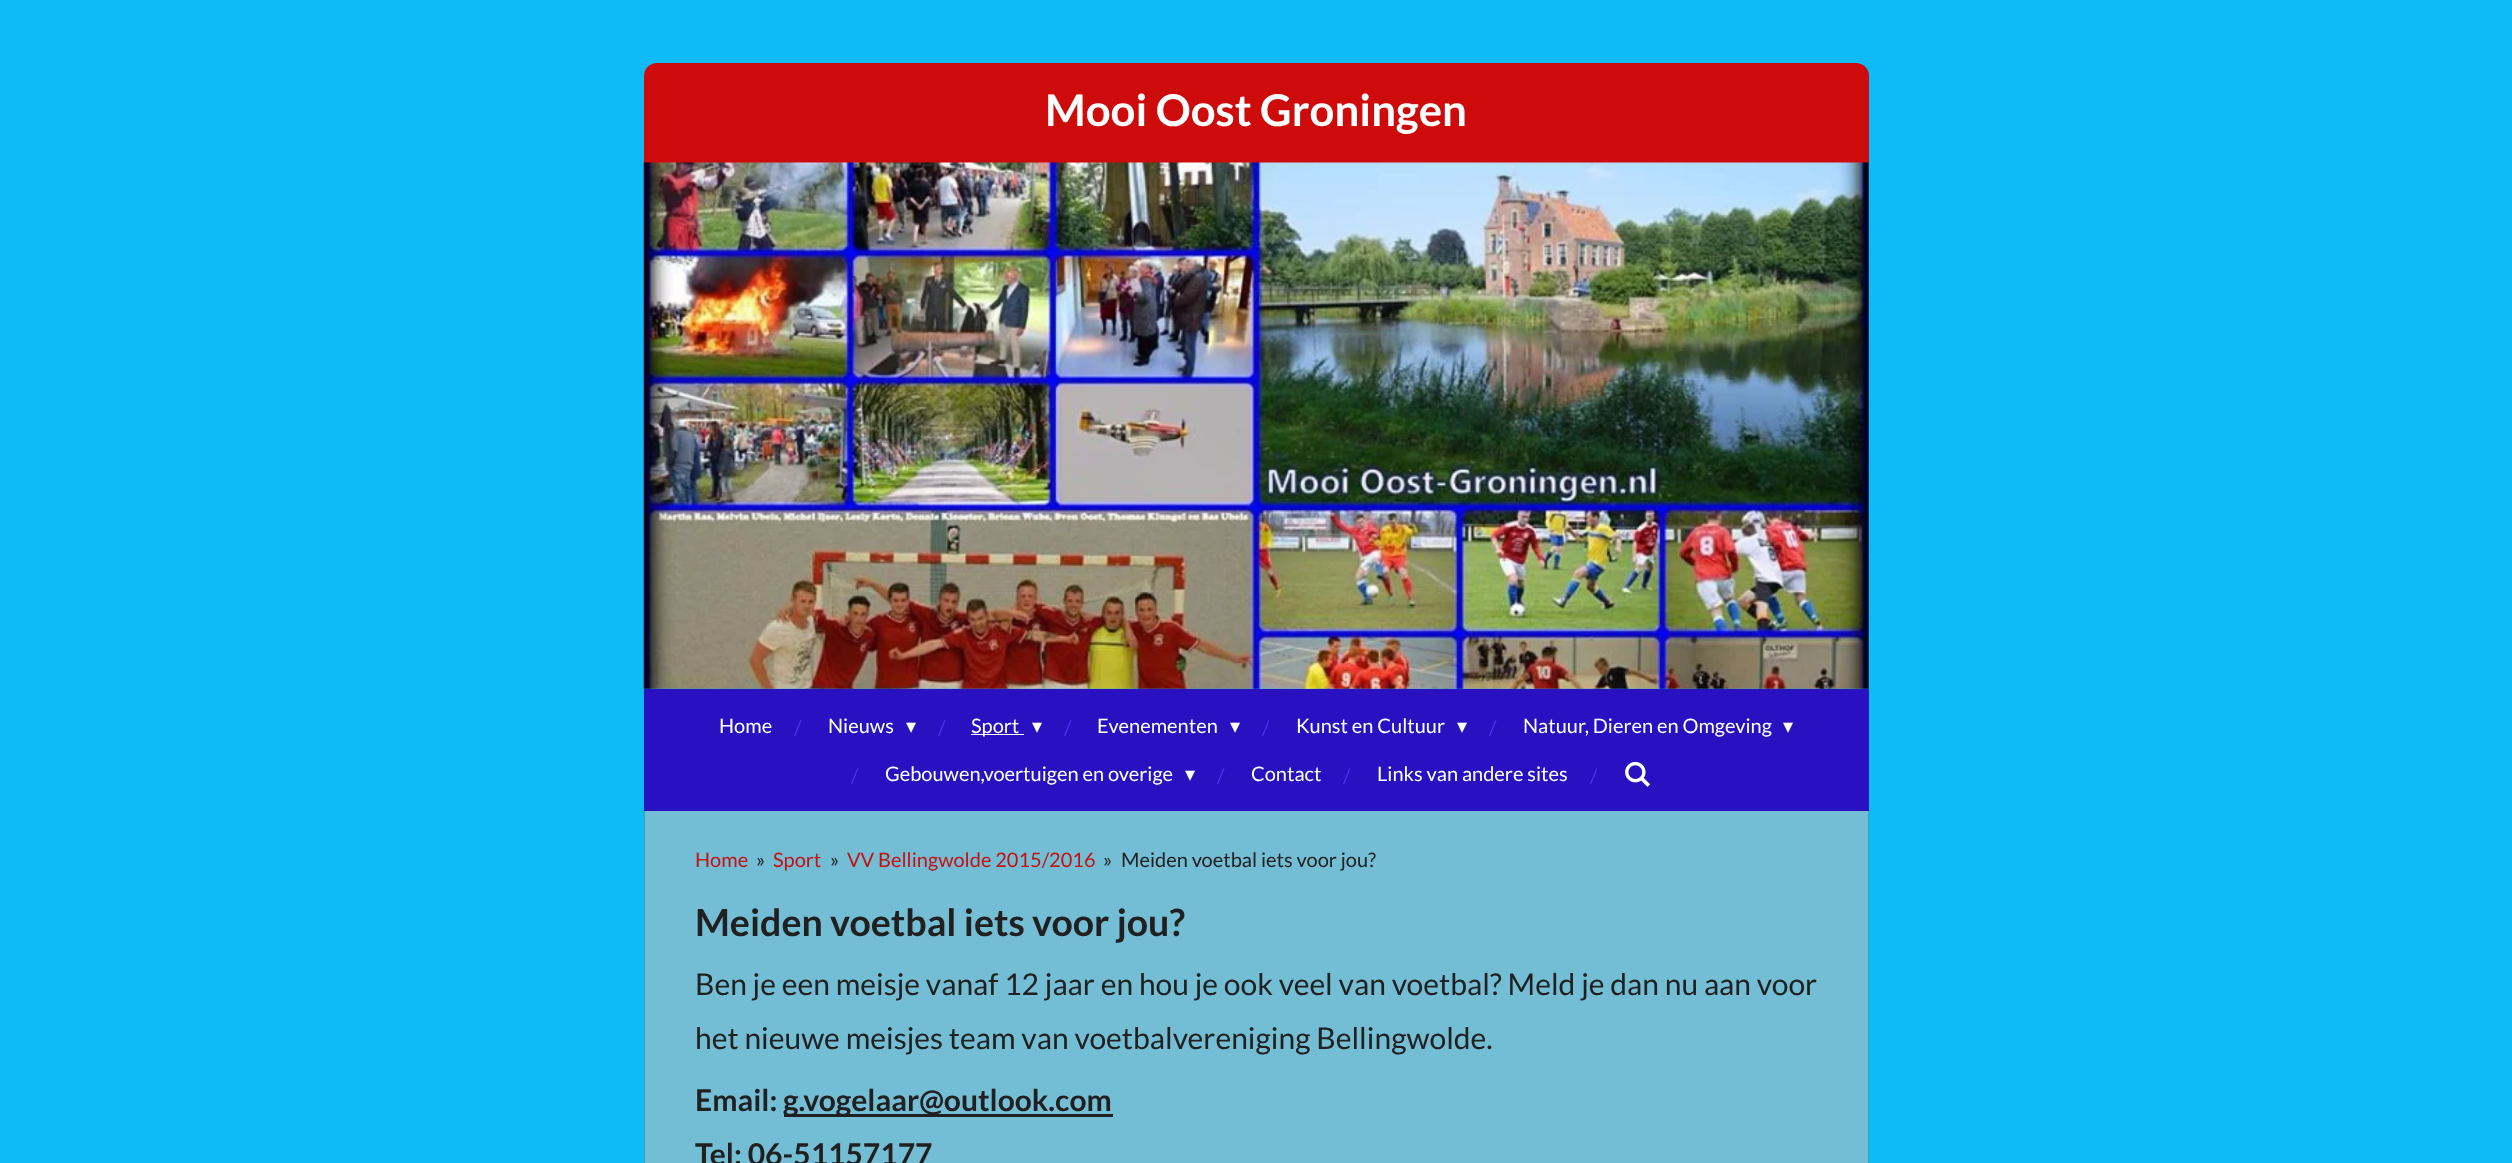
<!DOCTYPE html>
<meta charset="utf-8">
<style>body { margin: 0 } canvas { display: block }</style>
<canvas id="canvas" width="2512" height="1163"></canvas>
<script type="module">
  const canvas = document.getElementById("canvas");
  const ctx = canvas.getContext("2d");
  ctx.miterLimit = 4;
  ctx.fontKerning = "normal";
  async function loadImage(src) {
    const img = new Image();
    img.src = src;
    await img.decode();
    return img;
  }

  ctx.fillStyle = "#0ebbf6";
  ctx.fillRect(0, 0, 2512, 1163);
  ctx.fillStyle = "#cd0b0b";
  ctx.beginPath();
  ctx.roundRect(644, 63, 1225, 100, [13, 13, 0, 0]);
  ctx.fill();
  ctx.font = "bold 43.75px Lato";
  ctx.fillStyle = "#ffffff";
  ctx.fillText("Mooi Oost Groningen", 1045, 126);
  ctx.drawImage(await loadImage("img1.png"), 643, 162, 1226, 527);
  ctx.fillStyle = "#2911c1";
  ctx.fillRect(644, 689, 1225, 122);
  ctx.font = "20px Lato";
  ctx.fillStyle = "#ffffff";
  ctx.fillText("Home", 719, 733);
  ctx.fillStyle = "#4b32ed";
  ctx.fillText("/", 794, 735);
  ctx.fillStyle = "#ffffff";
  ctx.fillText("Nieuws", 828, 733);
  ctx.font = "20px DejaVu Sans";
  ctx.fillText("▾", 906, 733);
  ctx.font = "20px Lato";
  ctx.fillStyle = "#4b32ed";
  ctx.fillText("/", 938, 735);
  ctx.fillStyle = "#ffffff";
  ctx.fillRect(971, 734, 53, 1);
  ctx.fillText("Sport", 971, 733);
  ctx.font = "20px DejaVu Sans";
  ctx.fillText("▾", 1032, 733);
  ctx.font = "20px Lato";
  ctx.fillStyle = "#4b32ed";
  ctx.fillText("/", 1064, 735);
  ctx.fillStyle = "#ffffff";
  ctx.fillText("Evenementen", 1097, 733);
  ctx.font = "20px DejaVu Sans";
  ctx.fillText("▾", 1230, 733);
  ctx.font = "20px Lato";
  ctx.fillStyle = "#4b32ed";
  ctx.fillText("/", 1262, 735);
  ctx.fillStyle = "#ffffff";
  ctx.fillText("Kunst en Cultuur", 1296, 733);
  ctx.font = "20px DejaVu Sans";
  ctx.fillText("▾", 1457, 733);
  ctx.font = "20px Lato";
  ctx.fillStyle = "#4b32ed";
  ctx.fillText("/", 1489, 735);
  ctx.fillStyle = "#ffffff";
  ctx.fillText("Natuur, Dieren en Omgeving", 1523, 733);
  ctx.font = "20px DejaVu Sans";
  ctx.fillText("▾", 1783, 733);
  ctx.font = "20px Lato";
  ctx.fillStyle = "#4b32ed";
  ctx.fillText("/", 851, 783);
  ctx.fillStyle = "#ffffff";
  ctx.fillText("Gebouwen,voertuigen en overige", 885, 781);
  ctx.font = "20px DejaVu Sans";
  ctx.fillText("▾", 1185, 781);
  ctx.font = "20px Lato";
  ctx.fillStyle = "#4b32ed";
  ctx.fillText("/", 1217, 783);
  ctx.fillStyle = "#ffffff";
  ctx.fillText("Contact", 1251, 781);
  ctx.fillStyle = "#4b32ed";
  ctx.fillText("/", 1343, 783);
  ctx.fillStyle = "#ffffff";
  ctx.fillText("Links van andere sites", 1377, 781);
  ctx.fillStyle = "#4b32ed";
  ctx.fillText("/", 1590, 783);
  ctx.drawImage(await loadImage("img2.png"), 1625, 761, 25, 26);
  ctx.fillStyle = "#73bdd5";
  ctx.fillRect(645, 811, 1223, 352);
  ctx.fillStyle = "#3aa0c1";
  ctx.fillRect(1868, 811, 1, 352);
  ctx.fillRect(644, 811, 1, 352);
  ctx.fillStyle = "#c41212";
  ctx.fillText("Home", 695, 867);
  ctx.fillStyle = "#202020";
  ctx.fillText("»", 756, 867);
  ctx.fillStyle = "#c41212";
  ctx.fillText("Sport", 773, 867);
  ctx.fillStyle = "#202020";
  ctx.fillText("»", 830, 867);
  ctx.fillStyle = "#c41212";
  ctx.fillText("VV Bellingwolde 2015/2016", 847, 867);
  ctx.fillStyle = "#202020";
  ctx.fillText("»", 1103, 867);
  ctx.fillText("Meiden voetbal iets voor jou?", 1121, 867);
  ctx.font = "bold 37.5px Lato";
  ctx.fillText("Meiden voetbal iets voor jou?", 695, 936);
  ctx.font = "30px Lato";
  ctx.fillText("Ben je een meisje vanaf 12 jaar en hou je ook veel van voetbal? Meld je dan nu aan voor", 695, 995);
  ctx.fillText("het nieuwe meisjes team van voetbalvereniging Bellingwolde.", 695, 1049);
  ctx.font = "bold 30px Lato";
  ctx.fillText("Email:", 695, 1111);
  ctx.fillRect(784, 1114, 329, 3);
  ctx.fillText("g.vogelaar@outlook.com", 783, 1111);
  ctx.fillText("Tel: 06-51157177", 695, 1165);
</script>
